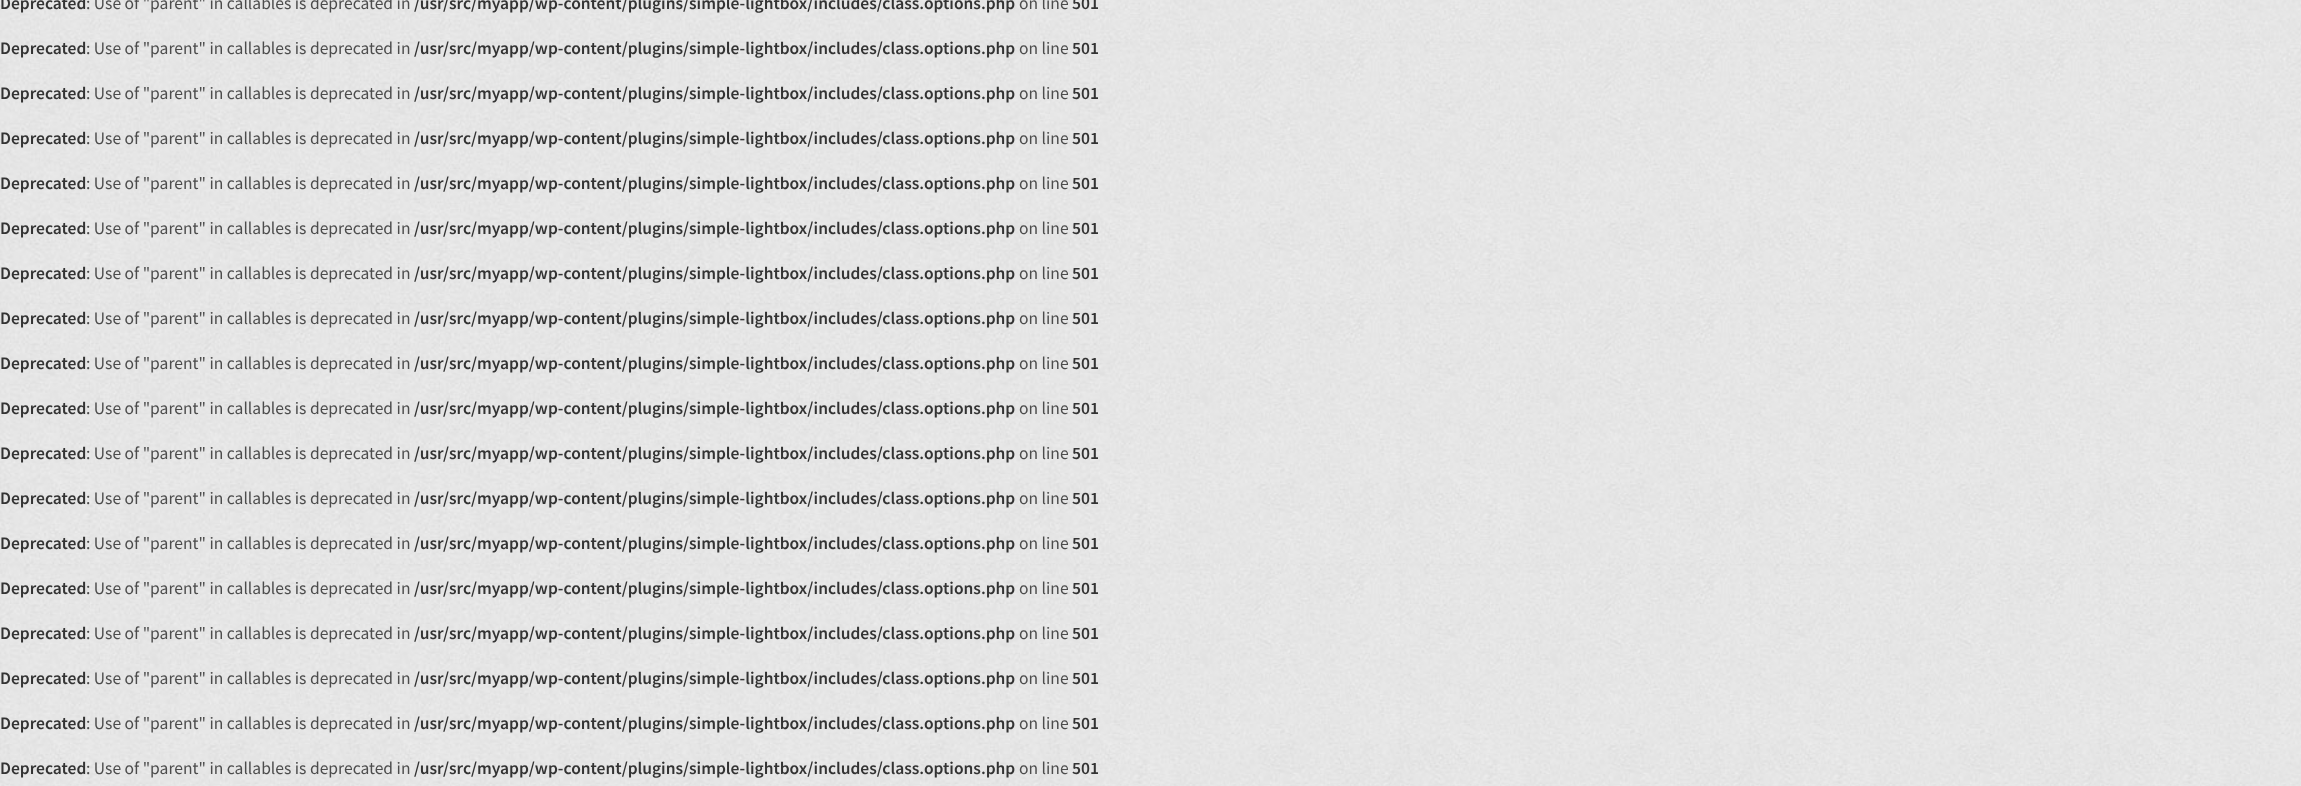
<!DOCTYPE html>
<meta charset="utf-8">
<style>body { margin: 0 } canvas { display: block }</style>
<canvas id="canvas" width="2301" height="786"></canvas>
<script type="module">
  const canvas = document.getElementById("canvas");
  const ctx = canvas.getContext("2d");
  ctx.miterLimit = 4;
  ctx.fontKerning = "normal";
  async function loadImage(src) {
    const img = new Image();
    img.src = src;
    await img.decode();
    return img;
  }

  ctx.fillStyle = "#ffffff";
  ctx.fillRect(0, 0, 2301, 786);
  ctx.drawImage(await loadImage("img1.png"), 0, 0, 2301, 786);
  ctx.font = "600 17.5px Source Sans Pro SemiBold";
  ctx.fillStyle = "#333333";
  ctx.fillText("Deprecated", 0, 9);
  ctx.font = "17.5px Source Sans Pro";
  ctx.fillStyle = "#4c4c4c";
  ctx.fillText(": Use of \"parent\" in callables is deprecated in", 86, 9);
  ctx.font = "600 17.5px Source Sans Pro SemiBold";
  ctx.fillStyle = "#333333";
  ctx.fillText("/usr/src/myapp/wp-content/plugins/simple-lightbox/includes/class.options.php", 414, 9);
  ctx.font = "17.5px Source Sans Pro";
  ctx.fillStyle = "#4c4c4c";
  ctx.fillText("on line", 1019, 9);
  ctx.font = "600 17.5px Source Sans Pro SemiBold";
  ctx.fillStyle = "#333333";
  ctx.fillText("501", 1072, 9);
  ctx.fillText("Deprecated", 0, 54);
  ctx.font = "17.5px Source Sans Pro";
  ctx.fillStyle = "#4c4c4c";
  ctx.fillText(": Use of \"parent\" in callables is deprecated in", 86, 54);
  ctx.font = "600 17.5px Source Sans Pro SemiBold";
  ctx.fillStyle = "#333333";
  ctx.fillText("/usr/src/myapp/wp-content/plugins/simple-lightbox/includes/class.options.php", 414, 54);
  ctx.font = "17.5px Source Sans Pro";
  ctx.fillStyle = "#4c4c4c";
  ctx.fillText("on line", 1019, 54);
  ctx.font = "600 17.5px Source Sans Pro SemiBold";
  ctx.fillStyle = "#333333";
  ctx.fillText("501", 1072, 54);
  ctx.fillText("Deprecated", 0, 99);
  ctx.font = "17.5px Source Sans Pro";
  ctx.fillStyle = "#4c4c4c";
  ctx.fillText(": Use of \"parent\" in callables is deprecated in", 86, 99);
  ctx.font = "600 17.5px Source Sans Pro SemiBold";
  ctx.fillStyle = "#333333";
  ctx.fillText("/usr/src/myapp/wp-content/plugins/simple-lightbox/includes/class.options.php", 414, 99);
  ctx.font = "17.5px Source Sans Pro";
  ctx.fillStyle = "#4c4c4c";
  ctx.fillText("on line", 1019, 99);
  ctx.font = "600 17.5px Source Sans Pro SemiBold";
  ctx.fillStyle = "#333333";
  ctx.fillText("501", 1072, 99);
  ctx.fillText("Deprecated", 0, 144);
  ctx.font = "17.5px Source Sans Pro";
  ctx.fillStyle = "#4c4c4c";
  ctx.fillText(": Use of \"parent\" in callables is deprecated in", 86, 144);
  ctx.font = "600 17.5px Source Sans Pro SemiBold";
  ctx.fillStyle = "#333333";
  ctx.fillText("/usr/src/myapp/wp-content/plugins/simple-lightbox/includes/class.options.php", 414, 144);
  ctx.font = "17.5px Source Sans Pro";
  ctx.fillStyle = "#4c4c4c";
  ctx.fillText("on line", 1019, 144);
  ctx.font = "600 17.5px Source Sans Pro SemiBold";
  ctx.fillStyle = "#333333";
  ctx.fillText("501", 1072, 144);
  ctx.fillText("Deprecated", 0, 189);
  ctx.font = "17.5px Source Sans Pro";
  ctx.fillStyle = "#4c4c4c";
  ctx.fillText(": Use of \"parent\" in callables is deprecated in", 86, 189);
  ctx.font = "600 17.5px Source Sans Pro SemiBold";
  ctx.fillStyle = "#333333";
  ctx.fillText("/usr/src/myapp/wp-content/plugins/simple-lightbox/includes/class.options.php", 414, 189);
  ctx.font = "17.5px Source Sans Pro";
  ctx.fillStyle = "#4c4c4c";
  ctx.fillText("on line", 1019, 189);
  ctx.font = "600 17.5px Source Sans Pro SemiBold";
  ctx.fillStyle = "#333333";
  ctx.fillText("501", 1072, 189);
  ctx.fillText("Deprecated", 0, 234);
  ctx.font = "17.5px Source Sans Pro";
  ctx.fillStyle = "#4c4c4c";
  ctx.fillText(": Use of \"parent\" in callables is deprecated in", 86, 234);
  ctx.font = "600 17.5px Source Sans Pro SemiBold";
  ctx.fillStyle = "#333333";
  ctx.fillText("/usr/src/myapp/wp-content/plugins/simple-lightbox/includes/class.options.php", 414, 234);
  ctx.font = "17.5px Source Sans Pro";
  ctx.fillStyle = "#4c4c4c";
  ctx.fillText("on line", 1019, 234);
  ctx.font = "600 17.5px Source Sans Pro SemiBold";
  ctx.fillStyle = "#333333";
  ctx.fillText("501", 1072, 234);
  ctx.fillText("Deprecated", 0, 279);
  ctx.font = "17.5px Source Sans Pro";
  ctx.fillStyle = "#4c4c4c";
  ctx.fillText(": Use of \"parent\" in callables is deprecated in", 86, 279);
  ctx.font = "600 17.5px Source Sans Pro SemiBold";
  ctx.fillStyle = "#333333";
  ctx.fillText("/usr/src/myapp/wp-content/plugins/simple-lightbox/includes/class.options.php", 414, 279);
  ctx.font = "17.5px Source Sans Pro";
  ctx.fillStyle = "#4c4c4c";
  ctx.fillText("on line", 1019, 279);
  ctx.font = "600 17.5px Source Sans Pro SemiBold";
  ctx.fillStyle = "#333333";
  ctx.fillText("501", 1072, 279);
  ctx.fillText("Deprecated", 0, 324);
  ctx.font = "17.5px Source Sans Pro";
  ctx.fillStyle = "#4c4c4c";
  ctx.fillText(": Use of \"parent\" in callables is deprecated in", 86, 324);
  ctx.font = "600 17.5px Source Sans Pro SemiBold";
  ctx.fillStyle = "#333333";
  ctx.fillText("/usr/src/myapp/wp-content/plugins/simple-lightbox/includes/class.options.php", 414, 324);
  ctx.font = "17.5px Source Sans Pro";
  ctx.fillStyle = "#4c4c4c";
  ctx.fillText("on line", 1019, 324);
  ctx.font = "600 17.5px Source Sans Pro SemiBold";
  ctx.fillStyle = "#333333";
  ctx.fillText("501", 1072, 324);
  ctx.fillText("Deprecated", 0, 369);
  ctx.font = "17.5px Source Sans Pro";
  ctx.fillStyle = "#4c4c4c";
  ctx.fillText(": Use of \"parent\" in callables is deprecated in", 86, 369);
  ctx.font = "600 17.5px Source Sans Pro SemiBold";
  ctx.fillStyle = "#333333";
  ctx.fillText("/usr/src/myapp/wp-content/plugins/simple-lightbox/includes/class.options.php", 414, 369);
  ctx.font = "17.5px Source Sans Pro";
  ctx.fillStyle = "#4c4c4c";
  ctx.fillText("on line", 1019, 369);
  ctx.font = "600 17.5px Source Sans Pro SemiBold";
  ctx.fillStyle = "#333333";
  ctx.fillText("501", 1072, 369);
  ctx.fillText("Deprecated", 0, 414);
  ctx.font = "17.5px Source Sans Pro";
  ctx.fillStyle = "#4c4c4c";
  ctx.fillText(": Use of \"parent\" in callables is deprecated in", 86, 414);
  ctx.font = "600 17.5px Source Sans Pro SemiBold";
  ctx.fillStyle = "#333333";
  ctx.fillText("/usr/src/myapp/wp-content/plugins/simple-lightbox/includes/class.options.php", 414, 414);
  ctx.font = "17.5px Source Sans Pro";
  ctx.fillStyle = "#4c4c4c";
  ctx.fillText("on line", 1019, 414);
  ctx.font = "600 17.5px Source Sans Pro SemiBold";
  ctx.fillStyle = "#333333";
  ctx.fillText("501", 1072, 414);
  ctx.fillText("Deprecated", 0, 459);
  ctx.font = "17.5px Source Sans Pro";
  ctx.fillStyle = "#4c4c4c";
  ctx.fillText(": Use of \"parent\" in callables is deprecated in", 86, 459);
  ctx.font = "600 17.5px Source Sans Pro SemiBold";
  ctx.fillStyle = "#333333";
  ctx.fillText("/usr/src/myapp/wp-content/plugins/simple-lightbox/includes/class.options.php", 414, 459);
  ctx.font = "17.5px Source Sans Pro";
  ctx.fillStyle = "#4c4c4c";
  ctx.fillText("on line", 1019, 459);
  ctx.font = "600 17.5px Source Sans Pro SemiBold";
  ctx.fillStyle = "#333333";
  ctx.fillText("501", 1072, 459);
  ctx.fillText("Deprecated", 0, 504);
  ctx.font = "17.5px Source Sans Pro";
  ctx.fillStyle = "#4c4c4c";
  ctx.fillText(": Use of \"parent\" in callables is deprecated in", 86, 504);
  ctx.font = "600 17.5px Source Sans Pro SemiBold";
  ctx.fillStyle = "#333333";
  ctx.fillText("/usr/src/myapp/wp-content/plugins/simple-lightbox/includes/class.options.php", 414, 504);
  ctx.font = "17.5px Source Sans Pro";
  ctx.fillStyle = "#4c4c4c";
  ctx.fillText("on line", 1019, 504);
  ctx.font = "600 17.5px Source Sans Pro SemiBold";
  ctx.fillStyle = "#333333";
  ctx.fillText("501", 1072, 504);
  ctx.fillText("Deprecated", 0, 549);
  ctx.font = "17.5px Source Sans Pro";
  ctx.fillStyle = "#4c4c4c";
  ctx.fillText(": Use of \"parent\" in callables is deprecated in", 86, 549);
  ctx.font = "600 17.5px Source Sans Pro SemiBold";
  ctx.fillStyle = "#333333";
  ctx.fillText("/usr/src/myapp/wp-content/plugins/simple-lightbox/includes/class.options.php", 414, 549);
  ctx.font = "17.5px Source Sans Pro";
  ctx.fillStyle = "#4c4c4c";
  ctx.fillText("on line", 1019, 549);
  ctx.font = "600 17.5px Source Sans Pro SemiBold";
  ctx.fillStyle = "#333333";
  ctx.fillText("501", 1072, 549);
  ctx.fillText("Deprecated", 0, 594);
  ctx.font = "17.5px Source Sans Pro";
  ctx.fillStyle = "#4c4c4c";
  ctx.fillText(": Use of \"parent\" in callables is deprecated in", 86, 594);
  ctx.font = "600 17.5px Source Sans Pro SemiBold";
  ctx.fillStyle = "#333333";
  ctx.fillText("/usr/src/myapp/wp-content/plugins/simple-lightbox/includes/class.options.php", 414, 594);
  ctx.font = "17.5px Source Sans Pro";
  ctx.fillStyle = "#4c4c4c";
  ctx.fillText("on line", 1019, 594);
  ctx.font = "600 17.5px Source Sans Pro SemiBold";
  ctx.fillStyle = "#333333";
  ctx.fillText("501", 1072, 594);
  ctx.fillText("Deprecated", 0, 639);
  ctx.font = "17.5px Source Sans Pro";
  ctx.fillStyle = "#4c4c4c";
  ctx.fillText(": Use of \"parent\" in callables is deprecated in", 86, 639);
  ctx.font = "600 17.5px Source Sans Pro SemiBold";
  ctx.fillStyle = "#333333";
  ctx.fillText("/usr/src/myapp/wp-content/plugins/simple-lightbox/includes/class.options.php", 414, 639);
  ctx.font = "17.5px Source Sans Pro";
  ctx.fillStyle = "#4c4c4c";
  ctx.fillText("on line", 1019, 639);
  ctx.font = "600 17.5px Source Sans Pro SemiBold";
  ctx.fillStyle = "#333333";
  ctx.fillText("501", 1072, 639);
  ctx.fillText("Deprecated", 0, 684);
  ctx.font = "17.5px Source Sans Pro";
  ctx.fillStyle = "#4c4c4c";
  ctx.fillText(": Use of \"parent\" in callables is deprecated in", 86, 684);
  ctx.font = "600 17.5px Source Sans Pro SemiBold";
  ctx.fillStyle = "#333333";
  ctx.fillText("/usr/src/myapp/wp-content/plugins/simple-lightbox/includes/class.options.php", 414, 684);
  ctx.font = "17.5px Source Sans Pro";
  ctx.fillStyle = "#4c4c4c";
  ctx.fillText("on line", 1019, 684);
  ctx.font = "600 17.5px Source Sans Pro SemiBold";
  ctx.fillStyle = "#333333";
  ctx.fillText("501", 1072, 684);
  ctx.fillText("Deprecated", 0, 729);
  ctx.font = "17.5px Source Sans Pro";
  ctx.fillStyle = "#4c4c4c";
  ctx.fillText(": Use of \"parent\" in callables is deprecated in", 86, 729);
  ctx.font = "600 17.5px Source Sans Pro SemiBold";
  ctx.fillStyle = "#333333";
  ctx.fillText("/usr/src/myapp/wp-content/plugins/simple-lightbox/includes/class.options.php", 414, 729);
  ctx.font = "17.5px Source Sans Pro";
  ctx.fillStyle = "#4c4c4c";
  ctx.fillText("on line", 1019, 729);
  ctx.font = "600 17.5px Source Sans Pro SemiBold";
  ctx.fillStyle = "#333333";
  ctx.fillText("501", 1072, 729);
  ctx.fillText("Deprecated", 0, 774);
  ctx.font = "17.5px Source Sans Pro";
  ctx.fillStyle = "#4c4c4c";
  ctx.fillText(": Use of \"parent\" in callables is deprecated in", 86, 774);
  ctx.font = "600 17.5px Source Sans Pro SemiBold";
  ctx.fillStyle = "#333333";
  ctx.fillText("/usr/src/myapp/wp-content/plugins/simple-lightbox/includes/class.options.php", 414, 774);
  ctx.font = "17.5px Source Sans Pro";
  ctx.fillStyle = "#4c4c4c";
  ctx.fillText("on line", 1019, 774);
  ctx.font = "600 17.5px Source Sans Pro SemiBold";
  ctx.fillStyle = "#333333";
  ctx.fillText("501", 1072, 774);
</script>
